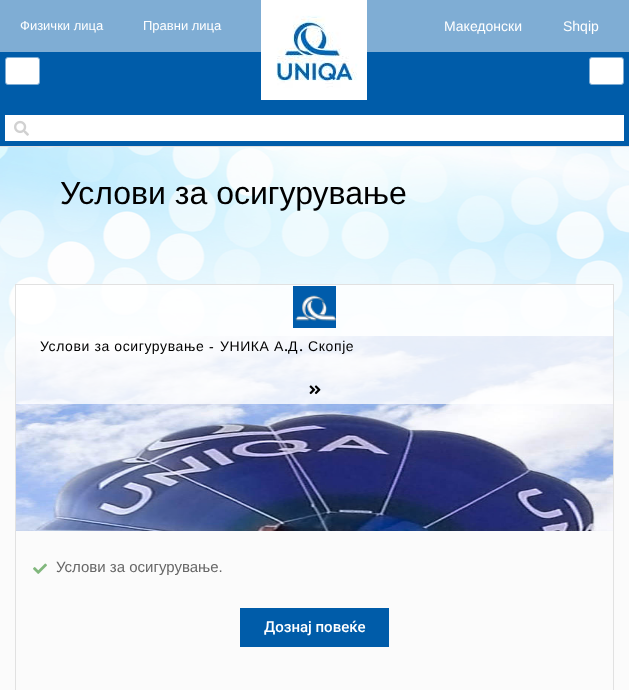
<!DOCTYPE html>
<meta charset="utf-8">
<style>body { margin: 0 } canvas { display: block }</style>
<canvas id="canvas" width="629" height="690"></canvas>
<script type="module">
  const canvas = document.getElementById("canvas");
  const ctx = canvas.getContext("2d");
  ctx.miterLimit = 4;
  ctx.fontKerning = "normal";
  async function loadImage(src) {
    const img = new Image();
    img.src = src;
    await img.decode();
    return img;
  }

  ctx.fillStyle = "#e1e1e1";
  ctx.fillRect(0, 0, 629, 690);
  ctx.fillStyle = "#005ca9";
  ctx.fillRect(0, 52, 629, 94);
  ctx.fillStyle = "#ffffff";
  ctx.beginPath();
  ctx.roundRect(5.5, 57.5, 34, 27, 2.5);
  ctx.fill();
  ctx.strokeStyle = "#7fadd4";
  ctx.stroke();
  ctx.fillStyle = "#7fadd4";
  ctx.fillRect(0, 0, 261, 52);
  ctx.fillRect(367, 0, 262, 52);
  ctx.fillStyle = "rgba(0, 0, 0, 0.5)";
  ctx.filter = "blur(0.5px)";
  ctx.beginPath();
  ctx.rect(261, 0, 106, 100);
  ctx.fill();
  ctx.filter = "none";
  ctx.drawImage(await loadImage("img1.png"), 261, 0, 106, 100);
  ctx.fillStyle = "#ffffff";
  ctx.beginPath();
  ctx.roundRect(589.5, 57.5, 34, 27, 2.5);
  ctx.fill();
  ctx.stroke();
  ctx.fillRect(5, 115, 619, 26);
  ctx.drawImage(await loadImage("img2.png"), 14, 120, 15, 16);
  ctx.font = "13px Liberation Sans";
  ctx.fillText("Физички лица", 20, 30);
  ctx.fillText("Правни лица", 143, 30);
  ctx.font = "14px Liberation Sans";
  ctx.fillText("Македонски", 444, 31);
  ctx.fillText("Shqip", 563, 31);
  ctx.fillStyle = "#fbfbfb";
  ctx.fillRect(0, 147, 629, 543);
  ctx.drawImage(await loadImage("img3.png"), 0, 147, 629, 254);
  ctx.font = "32px Liberation Sans";
  ctx.fillStyle = "#000000";
  ctx.fillText("Услови за осигурување", 60, 204);
  ctx.strokeStyle = "#e1e1e1";
  ctx.strokeRect(15.5, 284.5, 598, 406);
  ctx.drawImage(await loadImage("img4.png"), 16, 336, 597, 195);
  ctx.fillStyle = "rgba(255, 255, 255, 0.8)";
  ctx.fillRect(16, 285, 597, 119);
  ctx.drawImage(await loadImage("img5.png"), 293, 285, 43, 43);
  ctx.letterSpacing = "0.6px";
  ctx.font = "14px Liberation Sans";
  ctx.fillStyle = "#000000";
  ctx.fillText("Услови за осигурување", 40, 351);
  ctx.font = "600 14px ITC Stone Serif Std";
  ctx.fillText("-", 209, 351);
  ctx.font = "14px Liberation Sans";
  ctx.fillText("УНИКА А", 220, 351);
  ctx.fillText("Д", 288, 351);
  ctx.fillText("Скопје", 308, 351);
  ctx.font = "600 14px ITC Stone Serif Std";
  ctx.fillText(".", 284, 351);
  ctx.fillText(".", 299, 351);
  ctx.drawImage(await loadImage("img6.png"), 309, 385, 12, 10);
  ctx.drawImage(await loadImage("img7.png"), 33, 563, 14, 11);
  ctx.letterSpacing = "0px";
  ctx.font = "15px Liberation Sans";
  ctx.fillStyle = "#676767";
  ctx.fillText("Услови за осигурување.", 56, 572);
  ctx.fillStyle = "#005ca9";
  ctx.fillRect(240, 608, 149, 39);
  ctx.font = "500 15px Roboto";
  ctx.fillStyle = "#ffffff";
  ctx.fillText("Дознај повеќе", 264, 632);
</script>
